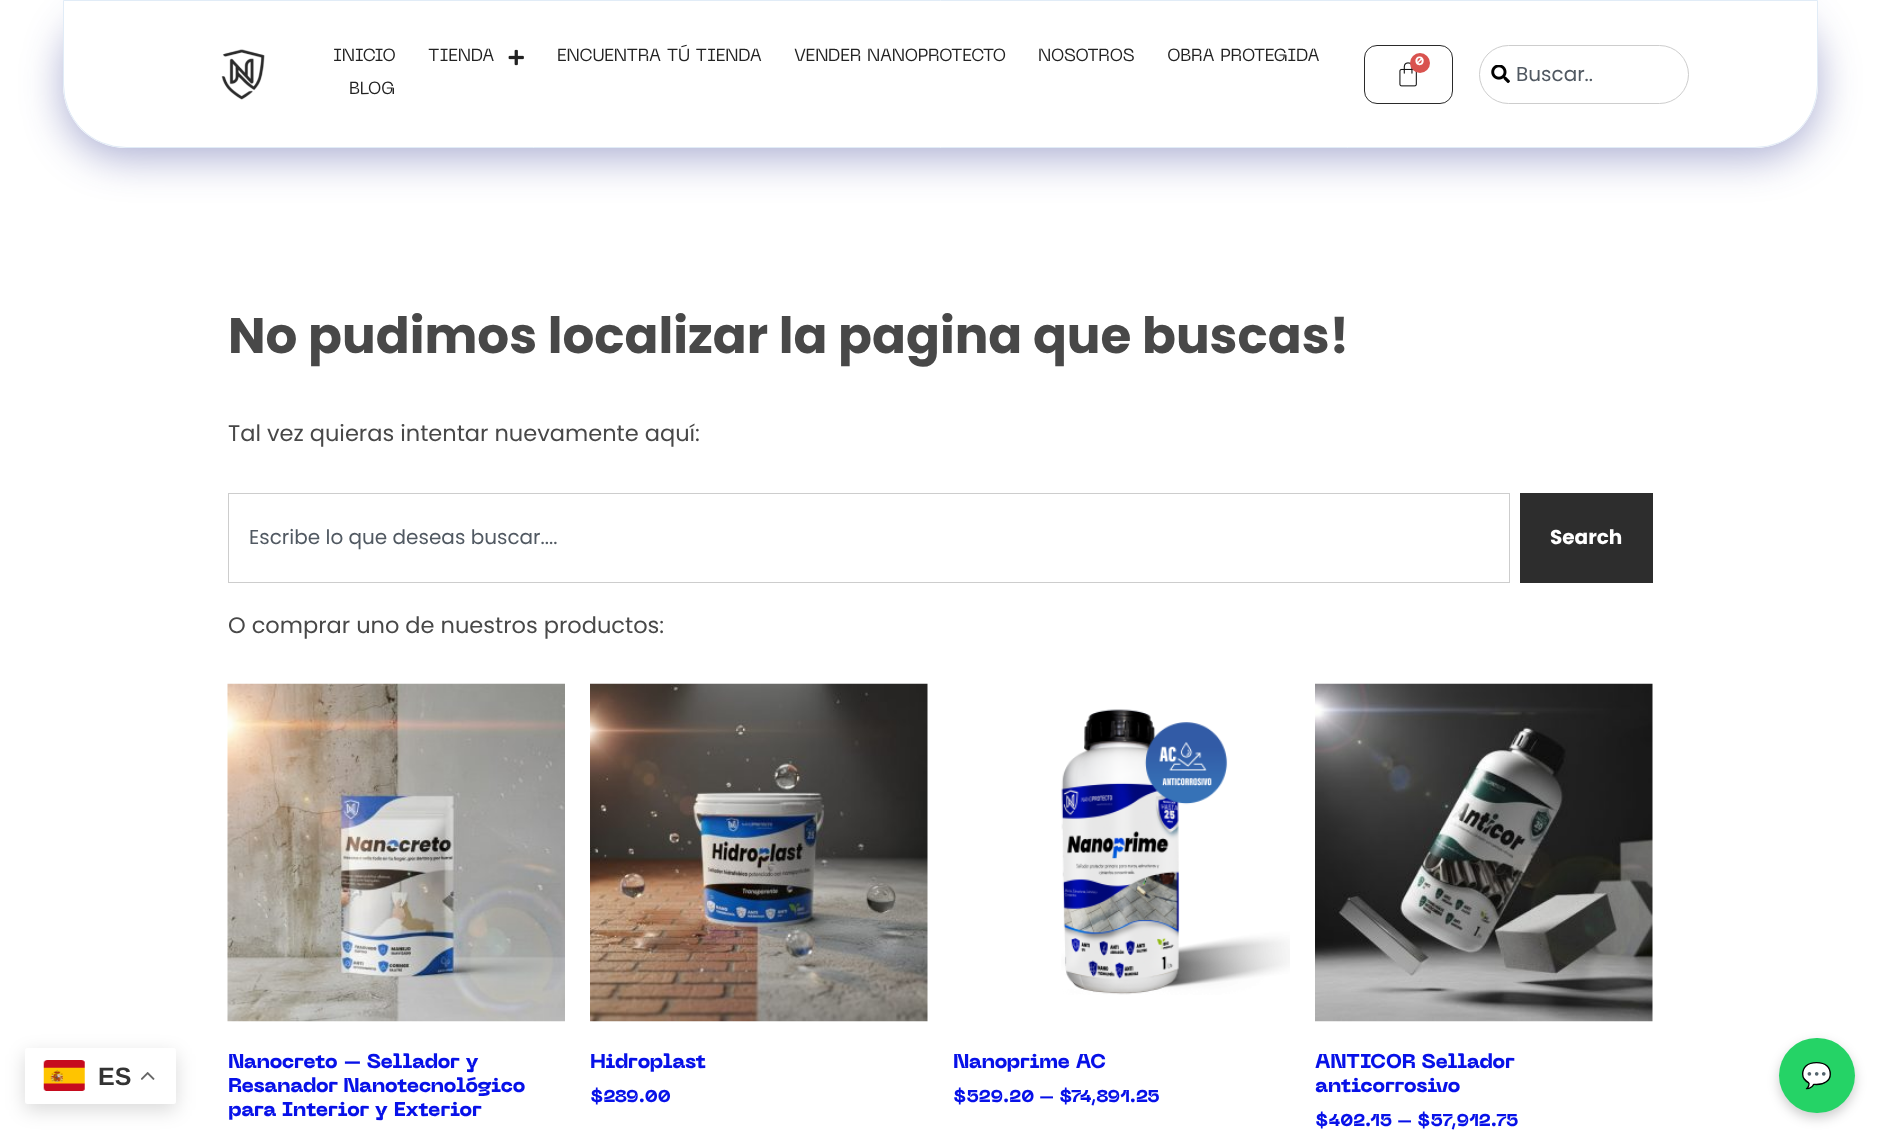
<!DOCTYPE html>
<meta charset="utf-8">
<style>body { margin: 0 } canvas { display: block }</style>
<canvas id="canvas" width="1880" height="1137"></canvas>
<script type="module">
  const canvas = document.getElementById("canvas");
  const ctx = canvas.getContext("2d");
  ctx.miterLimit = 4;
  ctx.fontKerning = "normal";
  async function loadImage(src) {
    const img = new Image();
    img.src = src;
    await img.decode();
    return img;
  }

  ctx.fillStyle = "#ffffff";
  ctx.fillRect(0, 0, 1880, 1137);
  ctx.save();
  ctx.beginPath();
  ctx.moveTo(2, 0);
  ctx.lineTo(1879, 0);
  ctx.lineTo(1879, 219);
  ctx.lineTo(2, 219);
  ctx.closePath();
  ctx.moveTo(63, 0);
  ctx.lineTo(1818, 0);
  ctx.lineTo(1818, 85);
  ctx.bezierCurveTo(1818, 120, 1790, 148, 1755, 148);
  ctx.lineTo(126, 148);
  ctx.bezierCurveTo(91, 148, 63, 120, 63, 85);
  ctx.closePath();
  ctx.clip("evenodd");
  ctx.fillStyle = "rgba(31, 38, 135, 0.37)";
  ctx.filter = "blur(20px)";
  ctx.beginPath();
  ctx.roundRect(63, 10, 1755, 148, 63);
  ctx.fill();
  ctx.filter = "none";
  ctx.restore();
  ctx.fillStyle = "rgba(255, 255, 255, 0.45)";
  ctx.beginPath();
  ctx.roundRect(63.5, 0.5, 1754, 147, [0, 0, 62.5, 62.5]);
  ctx.fill();
  ctx.strokeStyle = "#e1ecf7";
  ctx.stroke();
  ctx.drawImage(await loadImage("img1.png"), 221, 49, 44, 51);
  ctx.letterSpacing = "-0.1px";
  ctx.font = "17.5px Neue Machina";
  ctx.fillStyle = "#222222";
  ctx.fillText("INICIO", 333, 61);
  ctx.fillText("TIENDA", 428, 61);
  ctx.drawImage(await loadImage("img2.png"), 508, 49, 16, 17);
  ctx.fillText("ENCUENTRA TÚ TIENDA", 557, 61);
  ctx.fillText("VENDER NANOPROTECTO", 794, 61);
  ctx.fillText("NOSOTROS", 1038, 61);
  ctx.fillText("OBRA PROTEGIDA", 1167, 61);
  ctx.fillText("BLOG", 349, 94);
  ctx.beginPath();
  ctx.roundRect(1364.5, 45.5, 88, 58, 12.5);
  ctx.strokeStyle = "#2a2a2a";
  ctx.stroke();
  ctx.drawImage(await loadImage("img3.png"), 1399, 62, 18, 25);
  ctx.fillStyle = "#d9534f";
  ctx.beginPath();
  ctx.arc(1420, 63, 10, 0, Math.PI * 2);
  ctx.fill();
  ctx.letterSpacing = "0px";
  ctx.font = "800 12px Neue Machina";
  ctx.fillStyle = "#ffffff";
  ctx.fillText("0", 1415, 65);
  ctx.beginPath();
  ctx.roundRect(1479.5, 45.5, 209, 58, 29);
  ctx.strokeStyle = "#cdcdcd";
  ctx.stroke();
  ctx.drawImage(await loadImage("img4.png"), 1491, 65, 19, 19);
  ctx.font = "20px Poppins";
  ctx.fillStyle = "#515962";
  ctx.fillText("Buscar..", 1516, 81);
  ctx.fillStyle = "rgba(0, 0, 0, 0.15)";
  ctx.filter = "blur(9.5px)";
  ctx.beginPath();
  ctx.roundRect(25, 1054, 151, 56, 2.5);
  ctx.fill();
  ctx.filter = "none";
  ctx.fillStyle = "#ffffff";
  ctx.beginPath();
  ctx.roundRect(25, 1048, 151, 56, 2.5);
  ctx.fill();
  ctx.drawImage(await loadImage("img5.png"), 43, 1060, 42, 31);
  ctx.font = "bold 25px Liberation Sans";
  ctx.fillStyle = "#333333";
  ctx.fillText("ES", 98, 1085);
  ctx.drawImage(await loadImage("img6.png"), 141, 1072, 14, 8);
  ctx.font = "bold 50px Poppins";
  ctx.fillStyle = "#484848";
  ctx.fillText("No pudimos localizar la pagina que buscas!", 228, 353);
  ctx.font = "22.5px Poppins";
  ctx.fillText("Tal vez quieras intentar nuevamente aquí:", 228, 441);
  ctx.strokeRect(228.5, 493.5, 1281, 89);
  ctx.font = "20px Poppins";
  ctx.fillStyle = "#515962";
  ctx.fillText("Escribe lo que deseas buscar....", 249, 544);
  ctx.fillStyle = "#2d2d2d";
  ctx.fillRect(1520, 493, 133, 90);
  ctx.font = "bold 20px Poppins";
  ctx.fillStyle = "#ffffff";
  ctx.fillText("Search", 1550, 544);
  ctx.font = "22.5px Poppins";
  ctx.fillStyle = "#484848";
  ctx.fillText("O comprar uno de nuestros productos:", 228, 633);
  ctx.drawImage(await loadImage("img7.png"), 227, 683, 338, 339);
  ctx.font = "800 20px Neue Machina";
  ctx.fillStyle = "#0711e8";
  ctx.fillText("Nanocreto – Sellador y", 228, 1068);
  ctx.fillText("Resanador Nanotecnológico", 228, 1092);
  ctx.fillText("para Interior y Exterior", 228, 1116);
  ctx.drawImage(await loadImage("img8.png"), 590, 683, 338, 339);
  ctx.fillText("Hidroplast", 590, 1068);
  ctx.font = "800 17.1px Neue Machina";
  ctx.fillText("$289.00", 590, 1102);
  ctx.drawImage(await loadImage("img9.png"), 1061, 709, 229, 286);
  ctx.font = "800 20px Neue Machina";
  ctx.fillText("Nanoprime AC", 953, 1068);
  ctx.font = "800 17.1px Neue Machina";
  ctx.fillText("$529.20 – $", 953, 1102);
  ctx.fillText("74,891.25", 1071, 1102);
  ctx.drawImage(await loadImage("img10.png"), 1315, 683, 338, 339);
  ctx.font = "800 20px Neue Machina";
  ctx.fillText("ANTICOR Sellador", 1315, 1068);
  ctx.fillText("anticorrosivo", 1315, 1092);
  ctx.font = "800 17.1px Neue Machina";
  ctx.fillText("$402.15 – $57,912.75", 1315, 1126);
  ctx.fillStyle = "rgba(0, 0, 0, 0.2)";
  ctx.filter = "blur(6px)";
  ctx.beginPath();
  ctx.roundRect(1779, 1043, 76, 75, 37.5);
  ctx.fill();
  ctx.filter = "none";
  ctx.fillStyle = "#25d366";
  ctx.beginPath();
  ctx.roundRect(1779, 1038, 76, 75, 37.5);
  ctx.fill();
  ctx.font = "bold 25px Noto Color Emoji";
  ctx.fillStyle = "#ffffff";
  ctx.fillText("💬", 1801, 1084);
</script>
